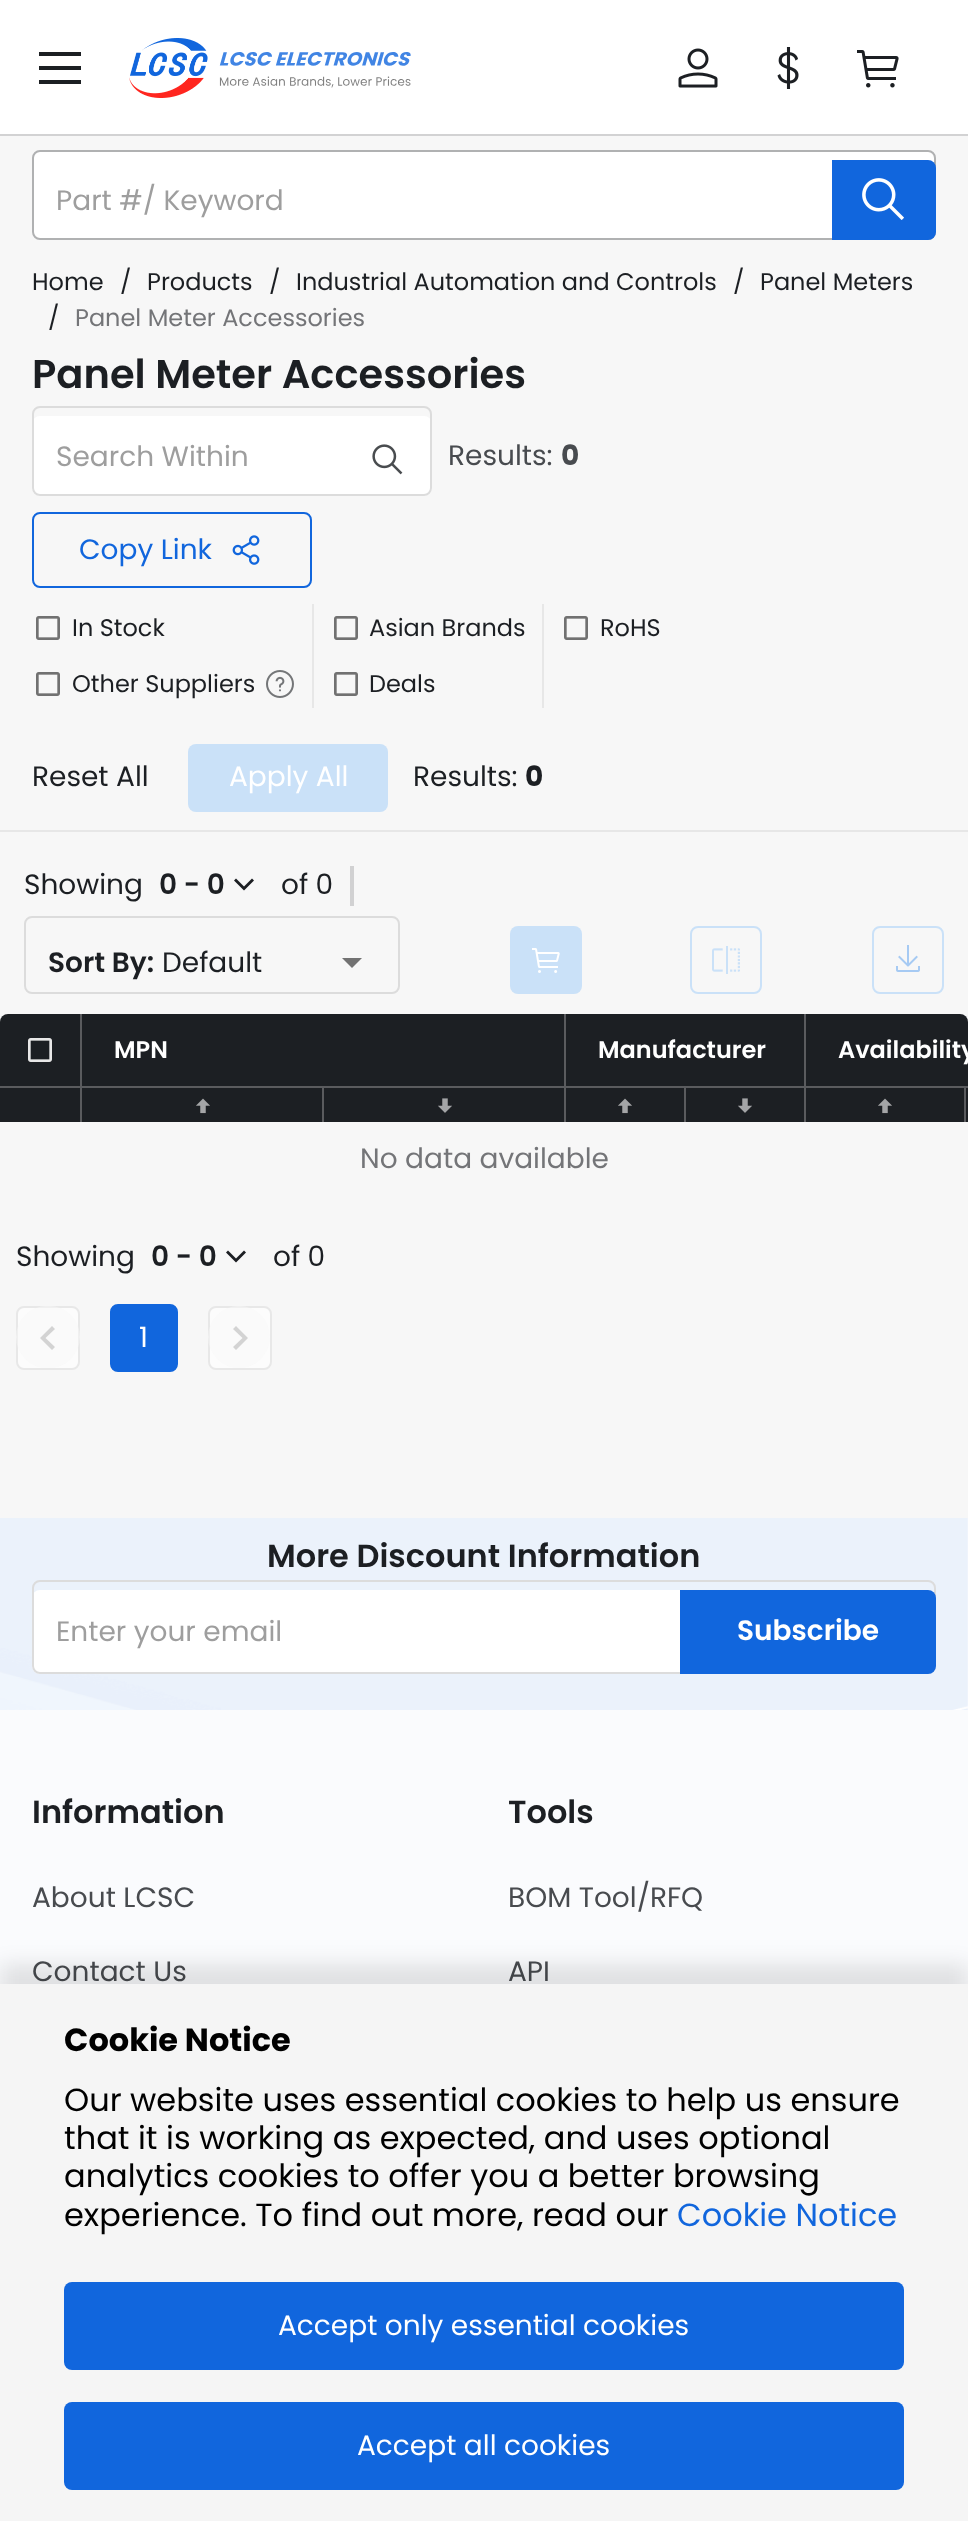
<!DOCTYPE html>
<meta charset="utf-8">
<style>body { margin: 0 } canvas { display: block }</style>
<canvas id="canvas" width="968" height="2521"></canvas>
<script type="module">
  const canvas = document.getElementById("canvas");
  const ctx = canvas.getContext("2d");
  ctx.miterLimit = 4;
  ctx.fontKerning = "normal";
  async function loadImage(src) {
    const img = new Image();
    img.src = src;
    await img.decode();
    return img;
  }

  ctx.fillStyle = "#ffffff";
  ctx.fillRect(0, 0, 968, 2521);
  ctx.fillStyle = "#d2d2d3";
  ctx.fillRect(0, 134, 968, 2);
  ctx.fillStyle = "#1c1f23";
  ctx.fillRect(39, 52, 42, 4);
  ctx.fillRect(39, 66, 42, 4);
  ctx.fillRect(39, 80, 42, 4);
  ctx.drawImage(await loadImage("img1.png"), 129, 38, 79, 60);
  ctx.drawImage(await loadImage("img2.png"), 219, 52, 192, 36);
  ctx.drawImage(await loadImage("img3.png"), 678, 48, 40, 40);
  ctx.drawImage(await loadImage("img4.png"), 777, 47, 22, 42);
  ctx.drawImage(await loadImage("img5.png"), 857, 50, 42, 38);
  ctx.fillStyle = "#f7f7f7";
  ctx.fillRect(0, 136, 968, 1382);
  ctx.fillStyle = "#ffffff";
  ctx.beginPath();
  ctx.roundRect(33, 151, 902, 88, 7);
  ctx.fill();
  ctx.strokeStyle = "#b0b1b2";
  ctx.lineWidth = 2;
  ctx.stroke();
  ctx.font = "28px Poppins";
  ctx.fillStyle = "#9e9e9e";
  ctx.fillText("Part #/ Keyword", 56, 210);
  ctx.fillStyle = "#1166dd";
  ctx.beginPath();
  ctx.roundRect(832, 160, 104, 80, [0, 8, 8, 0]);
  ctx.fill();
  ctx.drawImage(await loadImage("img6.png"), 862, 178, 42, 42);
  ctx.font = "24px Poppins";
  ctx.fillStyle = "#1c1f23";
  ctx.fillText("Home", 32, 290);
  ctx.fillText("/", 120, 290);
  ctx.fillText("Products", 147, 290);
  ctx.fillText("/", 269, 290);
  ctx.fillText("Industrial Automation and Controls", 296, 290);
  ctx.fillText("/", 733, 290);
  ctx.fillText("Panel Meters", 760, 290);
  ctx.fillText("/", 48, 326);
  ctx.fillStyle = "#747578";
  ctx.fillText("Panel Meter Accessories", 75, 326);
  ctx.font = "600 40px Poppins";
  ctx.fillStyle = "#1c1f23";
  ctx.fillText("Panel Meter Accessories", 32, 388);
  ctx.fillStyle = "#ffffff";
  ctx.beginPath();
  ctx.roundRect(32, 416, 400, 80, 8);
  ctx.fill();
  ctx.drawImage(await loadImage("img7.png"), 372, 444, 31, 31);
  ctx.beginPath();
  ctx.roundRect(33, 407, 398, 88, 7);
  ctx.strokeStyle = "#dcdcdc";
  ctx.stroke();
  ctx.font = "28px Poppins";
  ctx.fillStyle = "#9e9e9e";
  ctx.fillText("Search Within", 56, 466);
  ctx.fillStyle = "#484b4f";
  ctx.fillText("Results:", 448, 465);
  ctx.font = "bold 28px Poppins";
  ctx.fillText("0", 561, 465);
  ctx.beginPath();
  ctx.roundRect(33, 513, 278, 74, 7);
  ctx.strokeStyle = "#1166dd";
  ctx.stroke();
  ctx.font = "28px Poppins";
  ctx.fillStyle = "#1166dd";
  ctx.fillText("Copy Link", 79, 559);
  ctx.drawImage(await loadImage("img8.png"), 232, 535, 28, 30);
  ctx.drawImage(await loadImage("img9.png"), 36, 616, 24, 24);
  ctx.font = "24px Poppins";
  ctx.fillStyle = "#1c1f23";
  ctx.fillText("In Stock", 72, 636);
  ctx.drawImage(await loadImage("img9.png"), 36, 672, 24, 24);
  ctx.fillText("Other Suppliers", 72, 692);
  ctx.drawImage(await loadImage("img10.png"), 266, 670, 28, 28);
  ctx.fillStyle = "#e7e7e7";
  ctx.fillRect(312, 604, 2, 104);
  ctx.drawImage(await loadImage("img9.png"), 334, 616, 24, 24);
  ctx.fillStyle = "#1c1f23";
  ctx.fillText("Asian Brands", 369, 636);
  ctx.drawImage(await loadImage("img9.png"), 334, 672, 24, 24);
  ctx.fillText("Deals", 369, 692);
  ctx.fillStyle = "#e7e7e7";
  ctx.fillRect(542, 604, 2, 104);
  ctx.drawImage(await loadImage("img9.png"), 564, 616, 24, 24);
  ctx.fillStyle = "#1c1f23";
  ctx.fillText("RoHS", 600, 636);
  ctx.font = "28px Poppins";
  ctx.fillText("Reset All", 32, 786);
  ctx.fillStyle = "#cae1f8";
  ctx.beginPath();
  ctx.roundRect(188, 744, 200, 68, 8);
  ctx.fill();
  ctx.fillStyle = "#ffffff";
  ctx.fillText("Apply All", 229, 786);
  ctx.fillStyle = "#1c1f23";
  ctx.fillText("Results:", 413, 786);
  ctx.font = "bold 28px Poppins";
  ctx.fillText("0", 525, 786);
  ctx.fillStyle = "#e7e7e7";
  ctx.fillRect(0, 830, 968, 2);
  ctx.font = "28px Poppins";
  ctx.fillStyle = "#1c1f23";
  ctx.fillText("Showing", 24, 894);
  ctx.font = "600 28px Poppins";
  ctx.fillText("0 - 0", 159, 894);
  ctx.beginPath();
  ctx.moveTo(234, 880.5);
  ctx.lineTo(236, 878.5);
  ctx.lineTo(244, 886.5);
  ctx.lineTo(252, 878.5);
  ctx.lineTo(254, 880.5);
  ctx.lineTo(244, 890.5);
  ctx.closePath();
  ctx.fill();
  ctx.font = "28px Poppins";
  ctx.fillText("of 0", 281, 894);
  ctx.fillStyle = "#d1d1d2";
  ctx.fillRect(350, 866, 4, 40);
  ctx.beginPath();
  ctx.roundRect(25, 917, 374, 76, 7);
  ctx.strokeStyle = "#dcdcdc";
  ctx.stroke();
  ctx.font = "600 28px Poppins";
  ctx.fillStyle = "#1c1f23";
  ctx.fillText("Sort By:", 48, 972);
  ctx.font = "28px Poppins";
  ctx.fillText("Default", 162, 972);
  ctx.fillStyle = "#727272";
  ctx.beginPath();
  ctx.moveTo(342, 958);
  ctx.lineTo(352, 968);
  ctx.lineTo(362, 958);
  ctx.closePath();
  ctx.fill();
  ctx.fillStyle = "#cae1f8";
  ctx.beginPath();
  ctx.roundRect(510, 926, 72, 68, 8);
  ctx.fill();
  ctx.drawImage(await loadImage("img11.png"), 532, 948, 28, 25);
  ctx.beginPath();
  ctx.roundRect(691, 927, 70, 66, 7);
  ctx.strokeStyle = "#cae1f8";
  ctx.stroke();
  ctx.drawImage(await loadImage("img12.png"), 712, 946, 28, 28);
  ctx.beginPath();
  ctx.roundRect(873, 927, 70, 66, 7);
  ctx.stroke();
  ctx.drawImage(await loadImage("img13.png"), 896, 945, 24, 27);
  ctx.fillStyle = "#1c1f23";
  ctx.beginPath();
  ctx.roundRect(0, 1014, 82, 108, [8, 0, 0, 0]);
  ctx.fill();
  ctx.fillStyle = "#5a5b5e";
  ctx.fillRect(80, 1014, 2, 108);
  ctx.drawImage(await loadImage("img14.png"), 28, 1038, 24, 24);
  ctx.fillRect(0, 1086, 80, 2);
  ctx.fillStyle = "#1c1f23";
  ctx.fillRect(82, 1014, 482, 108);
  ctx.fillStyle = "#5a5b5e";
  ctx.fillRect(564, 1014, 2, 108);
  ctx.font = "600 24px Poppins";
  ctx.fillStyle = "#ffffff";
  ctx.fillText("MPN", 114, 1058);
  ctx.fillStyle = "#5a5b5e";
  ctx.fillRect(82, 1086, 482, 2);
  ctx.fillRect(322, 1088, 2, 34);
  ctx.drawImage(await loadImage("img15.png"), 196, 1098, 14, 16);
  ctx.drawImage(await loadImage("img16.png"), 438, 1098, 14, 15);
  ctx.fillStyle = "#1c1f23";
  ctx.fillRect(566, 1014, 238, 108);
  ctx.fillStyle = "#5a5b5e";
  ctx.fillRect(804, 1014, 2, 108);
  ctx.fillStyle = "#ffffff";
  ctx.fillText("Manufacturer", 598, 1058);
  ctx.fillStyle = "#5a5b5e";
  ctx.fillRect(566, 1086, 238, 2);
  ctx.fillRect(684, 1088, 2, 34);
  ctx.drawImage(await loadImage("img15.png"), 618, 1098, 14, 16);
  ctx.drawImage(await loadImage("img16.png"), 738, 1098, 14, 15);
  ctx.fillStyle = "#1c1f23";
  ctx.beginPath();
  ctx.roundRect(806, 1014, 162, 108, [0, 8, 0, 0]);
  ctx.fill();
  ctx.fillStyle = "#ffffff";
  ctx.fillText("Availability", 838, 1058);
  ctx.fillStyle = "#5a5b5e";
  ctx.fillRect(806, 1086, 162, 2);
  ctx.fillRect(964, 1088, 2, 34);
  ctx.drawImage(await loadImage("img15.png"), 878, 1098, 14, 16);
  ctx.font = "28px Poppins";
  ctx.fillStyle = "#747578";
  ctx.fillText("No data available", 360, 1168);
  ctx.fillStyle = "#1c1f23";
  ctx.fillText("Showing", 16, 1266);
  ctx.font = "600 28px Poppins";
  ctx.fillText("0 - 0", 151, 1266);
  ctx.beginPath();
  ctx.moveTo(226, 1252.5);
  ctx.lineTo(228, 1250.5);
  ctx.lineTo(236, 1258.5);
  ctx.lineTo(244, 1250.5);
  ctx.lineTo(246, 1252.5);
  ctx.lineTo(236, 1262.5);
  ctx.closePath();
  ctx.fill();
  ctx.font = "28px Poppins";
  ctx.fillText("of 0", 273, 1266);
  ctx.fillStyle = "#fcfcfc";
  ctx.beginPath();
  ctx.roundRect(17, 1307, 62, 62, 7);
  ctx.fill();
  ctx.strokeStyle = "#e8e8e8";
  ctx.stroke();
  ctx.fillStyle = "#a9a9a9";
  ctx.beginPath();
  ctx.moveTo(55, 1347);
  ctx.lineTo(45.5, 1338);
  ctx.lineTo(55, 1329);
  ctx.lineTo(52, 1326);
  ctx.lineTo(40, 1338);
  ctx.lineTo(52, 1350);
  ctx.closePath();
  ctx.fill();
  ctx.fillStyle = "rgba(247, 247, 247, 0.54)";
  ctx.beginPath();
  ctx.roundRect(16, 1306, 64, 62, 31);
  ctx.fill();
  ctx.fillStyle = "#1166dd";
  ctx.beginPath();
  ctx.roundRect(111, 1305, 66, 66, 7);
  ctx.fill();
  ctx.strokeStyle = "#1166dd";
  ctx.stroke();
  ctx.fillStyle = "#ffffff";
  ctx.fillText("1", 139, 1347);
  ctx.fillStyle = "#fcfcfc";
  ctx.beginPath();
  ctx.roundRect(209, 1307, 62, 62, 7);
  ctx.fill();
  ctx.strokeStyle = "#e8e8e8";
  ctx.stroke();
  ctx.fillStyle = "#a9a9a9";
  ctx.beginPath();
  ctx.moveTo(233, 1347);
  ctx.lineTo(242.5, 1338);
  ctx.lineTo(233, 1329);
  ctx.lineTo(236, 1326);
  ctx.lineTo(248, 1338);
  ctx.lineTo(236, 1350);
  ctx.closePath();
  ctx.fill();
  ctx.fillStyle = "rgba(247, 247, 247, 0.54)";
  ctx.beginPath();
  ctx.arc(239, 1337, 31, 0, Math.PI * 2);
  ctx.fill();
  ctx.fillStyle = "#fafbfd";
  ctx.fillRect(0, 1518, 968, 466);
  ctx.drawImage(await loadImage("img17.png"), 0, 1518, 968, 192);
  ctx.font = "600 32px Poppins";
  ctx.fillStyle = "#1c1f23";
  ctx.fillText("More Discount Information", 267, 1567);
  ctx.fillStyle = "#ffffff";
  ctx.beginPath();
  ctx.roundRect(32, 1590, 904, 84, 8);
  ctx.fill();
  ctx.beginPath();
  ctx.roundRect(33, 1581, 902, 92, 7);
  ctx.strokeStyle = "#dcdcdc";
  ctx.stroke();
  ctx.font = "28px Poppins";
  ctx.fillStyle = "#9e9e9e";
  ctx.fillText("Enter your email", 56, 1641);
  ctx.fillStyle = "#1166dd";
  ctx.beginPath();
  ctx.roundRect(680, 1590, 256, 84, [0, 8, 8, 0]);
  ctx.fill();
  ctx.font = "600 28px Poppins";
  ctx.fillStyle = "#ffffff";
  ctx.fillText("Subscribe", 737, 1640);
  ctx.font = "600 32px Poppins";
  ctx.fillStyle = "#1c1f23";
  ctx.fillText("Information", 32, 1823);
  ctx.font = "28px Poppins";
  ctx.fillStyle = "#484b4f";
  ctx.fillText("About LCSC", 32, 1907);
  ctx.fillText("Contact Us", 32, 1981);
  ctx.font = "600 32px Poppins";
  ctx.fillStyle = "#1c1f23";
  ctx.fillText("Tools", 508, 1823);
  ctx.font = "28px Poppins";
  ctx.fillStyle = "#484b4f";
  ctx.fillText("BOM Tool/RFQ", 508, 1907);
  ctx.fillText("API", 508, 1981);
  ctx.fillStyle = "rgba(0, 0, 0, 0.1)";
  ctx.filter = "blur(10px)";
  ctx.beginPath();
  ctx.rect(0, 1964, 968, 538);
  ctx.fill();
  ctx.filter = "none";
  ctx.fillStyle = "#f5f5f5";
  ctx.fillRect(0, 1984, 968, 537);
  ctx.font = "bold 32px Poppins";
  ctx.fillStyle = "#000000";
  ctx.fillText("Cookie Notice", 64, 2051);
  ctx.font = "32px Poppins";
  ctx.fillText("Our website uses essential cookies to help us ensure", 64, 2111);
  ctx.fillText("that it is working as expected, and uses optional", 64, 2149);
  ctx.fillText("analytics cookies to offer you a better browsing", 64, 2187);
  ctx.fillText("experience. To find out more, read our", 64, 2226);
  ctx.fillStyle = "#1166dd";
  ctx.fillText("Cookie Notice", 677, 2226);
  ctx.beginPath();
  ctx.roundRect(64, 2282, 840, 88, 8);
  ctx.fill();
  ctx.font = "28px Poppins";
  ctx.fillStyle = "#ffffff";
  ctx.fillText("Accept only essential cookies", 278, 2335);
  ctx.fillStyle = "#1166dd";
  ctx.beginPath();
  ctx.roundRect(64, 2402, 840, 88, 8);
  ctx.fill();
  ctx.fillStyle = "#ffffff";
  ctx.fillText("Accept all cookies", 357, 2455);
</script>
